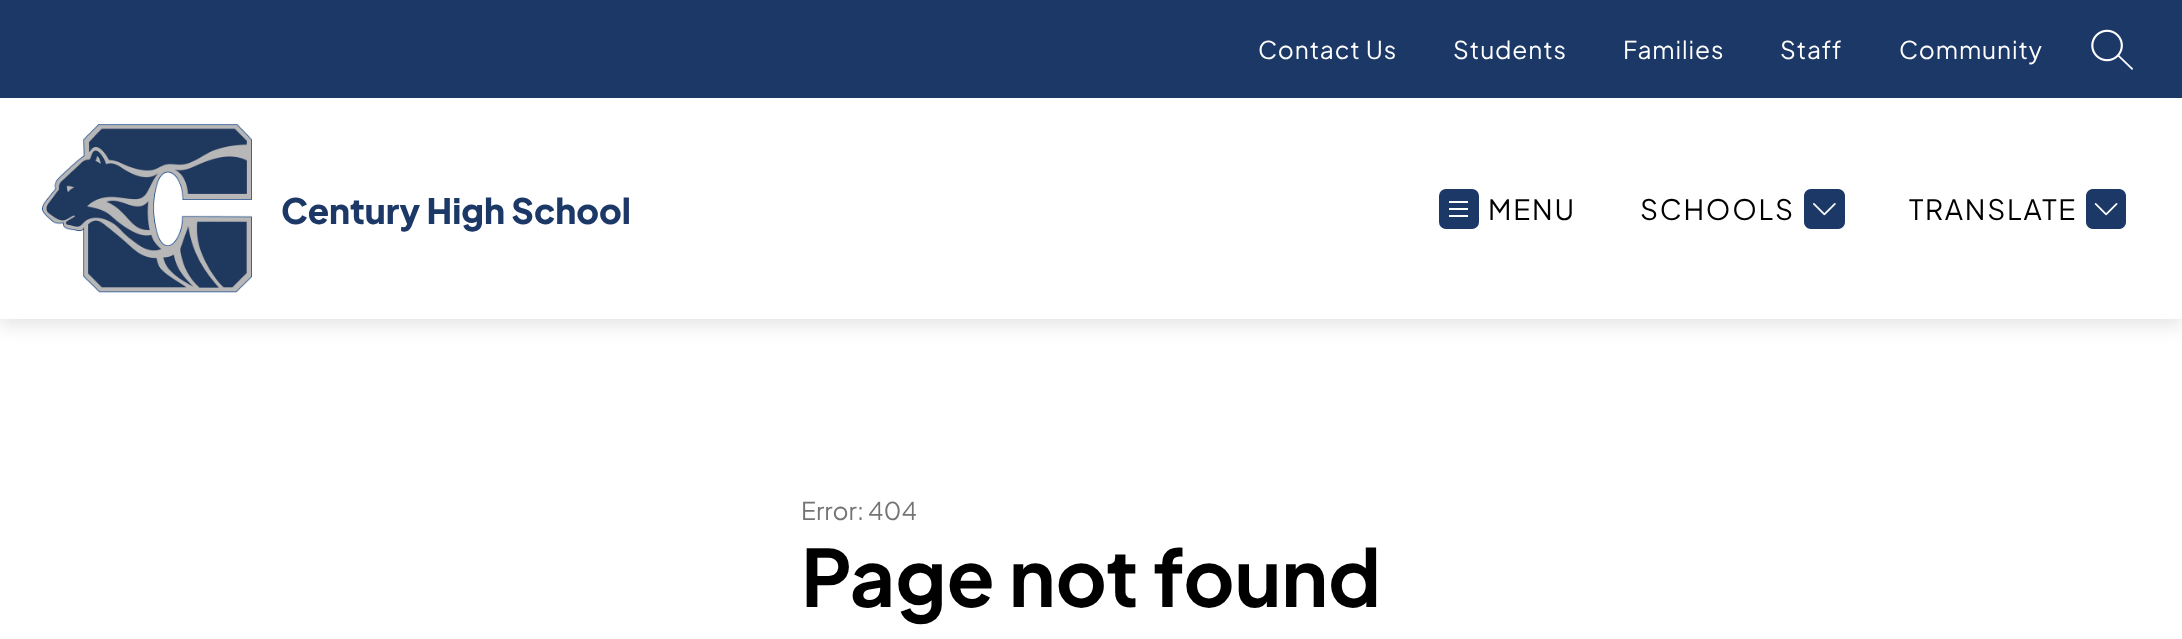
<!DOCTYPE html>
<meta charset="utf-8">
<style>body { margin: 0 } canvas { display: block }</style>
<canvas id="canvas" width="2182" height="639"></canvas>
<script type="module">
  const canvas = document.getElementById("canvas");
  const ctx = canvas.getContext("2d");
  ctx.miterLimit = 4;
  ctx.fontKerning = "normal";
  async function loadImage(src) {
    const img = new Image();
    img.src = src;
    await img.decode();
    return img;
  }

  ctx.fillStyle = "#ffffff";
  ctx.fillRect(0, 0, 2182, 639);
  ctx.fillStyle = "rgba(0, 0, 0, 0.1)";
  ctx.filter = "blur(9px)";
  ctx.beginPath();
  ctx.rect(0, 7, 2182, 319);
  ctx.fill();
  ctx.filter = "none";
  ctx.fillStyle = "#ffffff";
  ctx.fillRect(0, 98, 2182, 221);
  ctx.fillStyle = "#1c3867";
  ctx.fillRect(0, 0, 2182, 98);
  ctx.letterSpacing = "0.9px";
  ctx.font = "24.5px Plus Jakarta Sans";
  ctx.fillStyle = "#ffffff";
  ctx.fillText("Contact Us", 1258, 59);
  ctx.fillText("Students", 1453, 59);
  ctx.fillText("Families", 1623, 59);
  ctx.fillText("Staff", 1780, 59);
  ctx.fillText("Community", 1899, 59);
  ctx.drawImage(await loadImage("img1.png"), 2091, 29, 42, 41);
  ctx.drawImage(await loadImage("img2.png"), 42, 124, 210, 169);
  ctx.letterSpacing = "0px";
  ctx.font = "800 35px Plus Jakarta Sans";
  ctx.fillStyle = "#1c3867";
  ctx.fillText("Century High School", 281, 224);
  ctx.beginPath();
  ctx.roundRect(1439, 189, 40, 40, 7);
  ctx.fill();
  ctx.fillStyle = "#ffffff";
  ctx.beginPath();
  ctx.moveTo(1449, 201);
  ctx.lineTo(1468, 201);
  ctx.lineTo(1468, 203);
  ctx.lineTo(1449, 203);
  ctx.closePath();
  ctx.moveTo(1449, 208);
  ctx.lineTo(1468, 208);
  ctx.lineTo(1468, 210);
  ctx.lineTo(1449, 210);
  ctx.closePath();
  ctx.moveTo(1468, 215);
  ctx.lineTo(1449, 215);
  ctx.lineTo(1449, 217);
  ctx.lineTo(1468, 217);
  ctx.closePath();
  ctx.fill("evenodd");
  ctx.letterSpacing = "1.75px";
  ctx.font = "28px Plus Jakarta Sans";
  ctx.fillStyle = "#000000";
  ctx.fillText("MENU", 1488, 220);
  ctx.fillText("SCHOOLS", 1640, 220);
  ctx.drawImage(await loadImage("img3.png"), 1804, 189, 41, 40);
  ctx.fillText("TRANSLATE", 1909, 220);
  ctx.drawImage(await loadImage("img4.png"), 2086, 189, 40, 40);
  ctx.letterSpacing = "0px";
  ctx.font = "24.5px Plus Jakarta Sans";
  ctx.fillStyle = "#747474";
  ctx.fillText("Error: 404", 801, 520);
  ctx.font = "bold 78.75px Plus Jakarta Sans";
  ctx.fillStyle = "#000000";
  ctx.fillText("Page not found", 801, 607);
</script>
